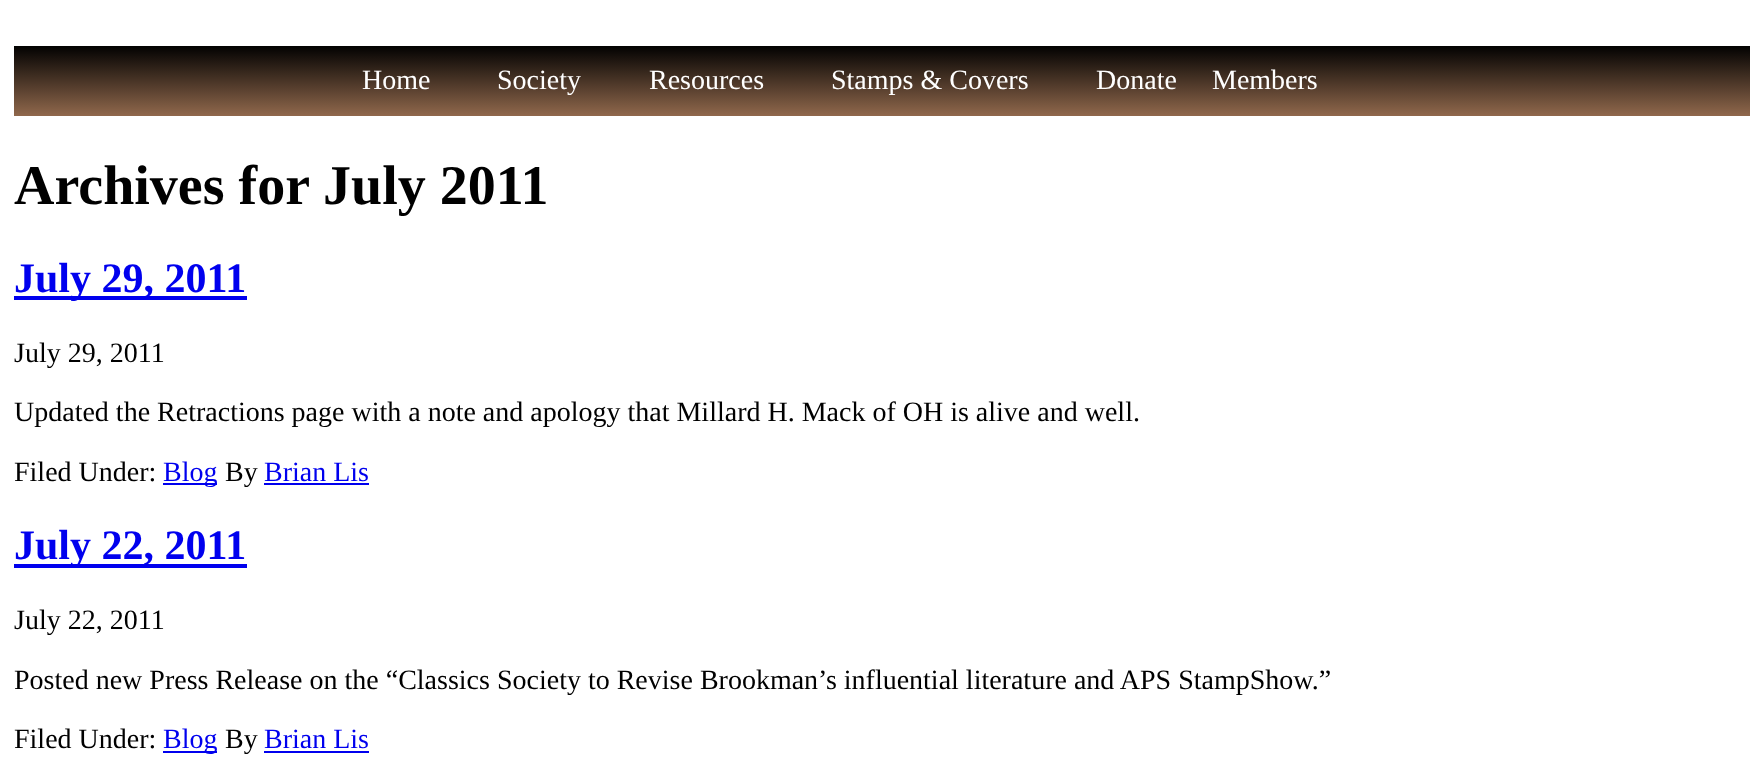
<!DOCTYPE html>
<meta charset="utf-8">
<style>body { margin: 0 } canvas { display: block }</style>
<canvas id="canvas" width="1763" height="772"></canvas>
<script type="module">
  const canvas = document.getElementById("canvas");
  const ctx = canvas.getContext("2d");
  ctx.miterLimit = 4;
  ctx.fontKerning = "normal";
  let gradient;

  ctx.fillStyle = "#ffffff";
  ctx.fillRect(0, 0, 1763, 772);
  gradient = ctx.createLinearGradient(882, 45, 882, 116);
  gradient.addColorStop(0, "#000000");
  gradient.addColorStop(1, "#90684c");
  ctx.fillStyle = gradient;
  ctx.fillRect(14, 46, 1736, 70);
  ctx.font = "28px Liberation Serif";
  ctx.fillStyle = "#ffffff";
  ctx.fillText("Home", 362, 89);
  ctx.fillText("Society", 497, 89);
  ctx.fillText("Resources", 649, 89);
  ctx.fillText("Stamps & Covers", 831, 89);
  ctx.fillText("Donate", 1096, 89);
  ctx.fillText("Members", 1212, 89);
  ctx.font = "bold 56px Liberation Serif";
  ctx.fillStyle = "#000000";
  ctx.fillText("Archives for July 2011", 14, 204);
  ctx.fillStyle = "#0000ee";
  ctx.fillRect(14, 296, 233, 4);
  ctx.font = "bold 42px Liberation Serif";
  ctx.fillText("July 29, 2011", 14, 292);
  ctx.font = "28px Liberation Serif";
  ctx.fillStyle = "#000000";
  ctx.fillText("July 29, 2011", 14, 362);
  ctx.fillText("Updated the Retractions page with a note and apology that Millard H. Mack of OH is alive and well.", 14, 421);
  ctx.fillText("Filed Under:", 14, 481);
  ctx.fillStyle = "#0000ee";
  ctx.fillRect(163, 483, 54, 2);
  ctx.fillText("Blog", 163, 481);
  ctx.fillStyle = "#000000";
  ctx.fillText("By", 225, 481);
  ctx.fillStyle = "#0000ee";
  ctx.fillText("Brian Lis", 264, 481);
  ctx.fillRect(264, 483, 105, 2);
  ctx.fillRect(14, 564, 233, 4);
  ctx.font = "bold 42px Liberation Serif";
  ctx.fillText("July 22, 2011", 14, 559);
  ctx.font = "28px Liberation Serif";
  ctx.fillStyle = "#000000";
  ctx.fillText("July 22, 2011", 14, 629);
  ctx.fillText("Posted new Press Release on the “Classics Society to Revise Brookman’s influential literature and APS StampShow.”", 14, 689);
  ctx.fillText("Filed Under:", 14, 748);
  ctx.fillStyle = "#0000ee";
  ctx.fillRect(163, 751, 54, 2);
  ctx.fillText("Blog", 163, 748);
  ctx.fillStyle = "#000000";
  ctx.fillText("By", 225, 748);
  ctx.fillStyle = "#0000ee";
  ctx.fillText("Brian Lis", 264, 748);
  ctx.fillRect(264, 751, 105, 2);
</script>
